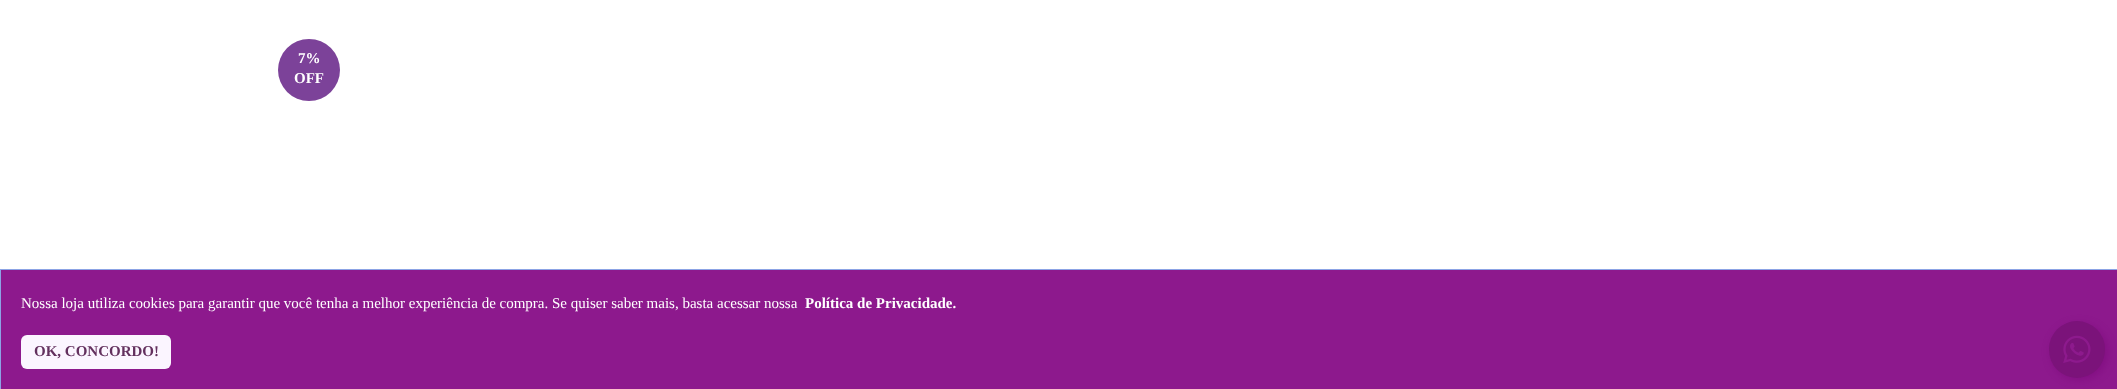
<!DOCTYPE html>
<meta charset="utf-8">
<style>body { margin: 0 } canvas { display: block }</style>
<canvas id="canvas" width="2117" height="389"></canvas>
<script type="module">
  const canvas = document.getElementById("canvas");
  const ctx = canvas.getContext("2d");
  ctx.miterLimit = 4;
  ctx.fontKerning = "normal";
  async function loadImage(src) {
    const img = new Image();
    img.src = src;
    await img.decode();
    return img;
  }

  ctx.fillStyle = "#ffffff";
  ctx.fillRect(0, 0, 2117, 389);
  ctx.fillStyle = "#8d198d";
  ctx.fillRect(1, 270, 2116, 119);
  ctx.fillStyle = "#7c4299";
  ctx.beginPath();
  ctx.arc(309, 70, 31, 0, Math.PI * 2);
  ctx.fill();
  ctx.font = "bold 15px Liberation Serif";
  ctx.fillStyle = "#ffffff";
  ctx.fillText("7%", 298, 63);
  ctx.fillText("OFF", 294, 83);
  ctx.fillStyle = "rgba(115, 0, 115, 0.4)";
  ctx.filter = "blur(4px)";
  ctx.beginPath();
  ctx.roundRect(2051, 324, 57, 56, 28);
  ctx.fill();
  ctx.filter = "none";
  ctx.fillStyle = "#7b137a";
  ctx.beginPath();
  ctx.roundRect(2049, 321, 56, 57, 28);
  ctx.fill();
  ctx.drawImage(await loadImage("img1.png"), 2063, 335, 28, 28);
  ctx.strokeStyle = "#8ca3e5";
  ctx.strokeRect(0.5, 269.5, 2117, 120);
  ctx.font = "15px Liberation Serif";
  ctx.fillStyle = "#ffffff";
  ctx.fillText("Nossa loja utiliza cookies para garantir que você tenha a melhor experiência de compra. Se quiser saber mais, basta acessar nossa", 21, 308);
  ctx.font = "bold 15px Liberation Serif";
  ctx.fillText("Política de Privacidade.", 805, 308);
  ctx.fillStyle = "#fbf5ff";
  ctx.beginPath();
  ctx.roundRect(21, 335, 150, 34, 6);
  ctx.fill();
  ctx.fillStyle = "#63305e";
  ctx.fillText("OK, CONCORDO!", 34, 356);
</script>
